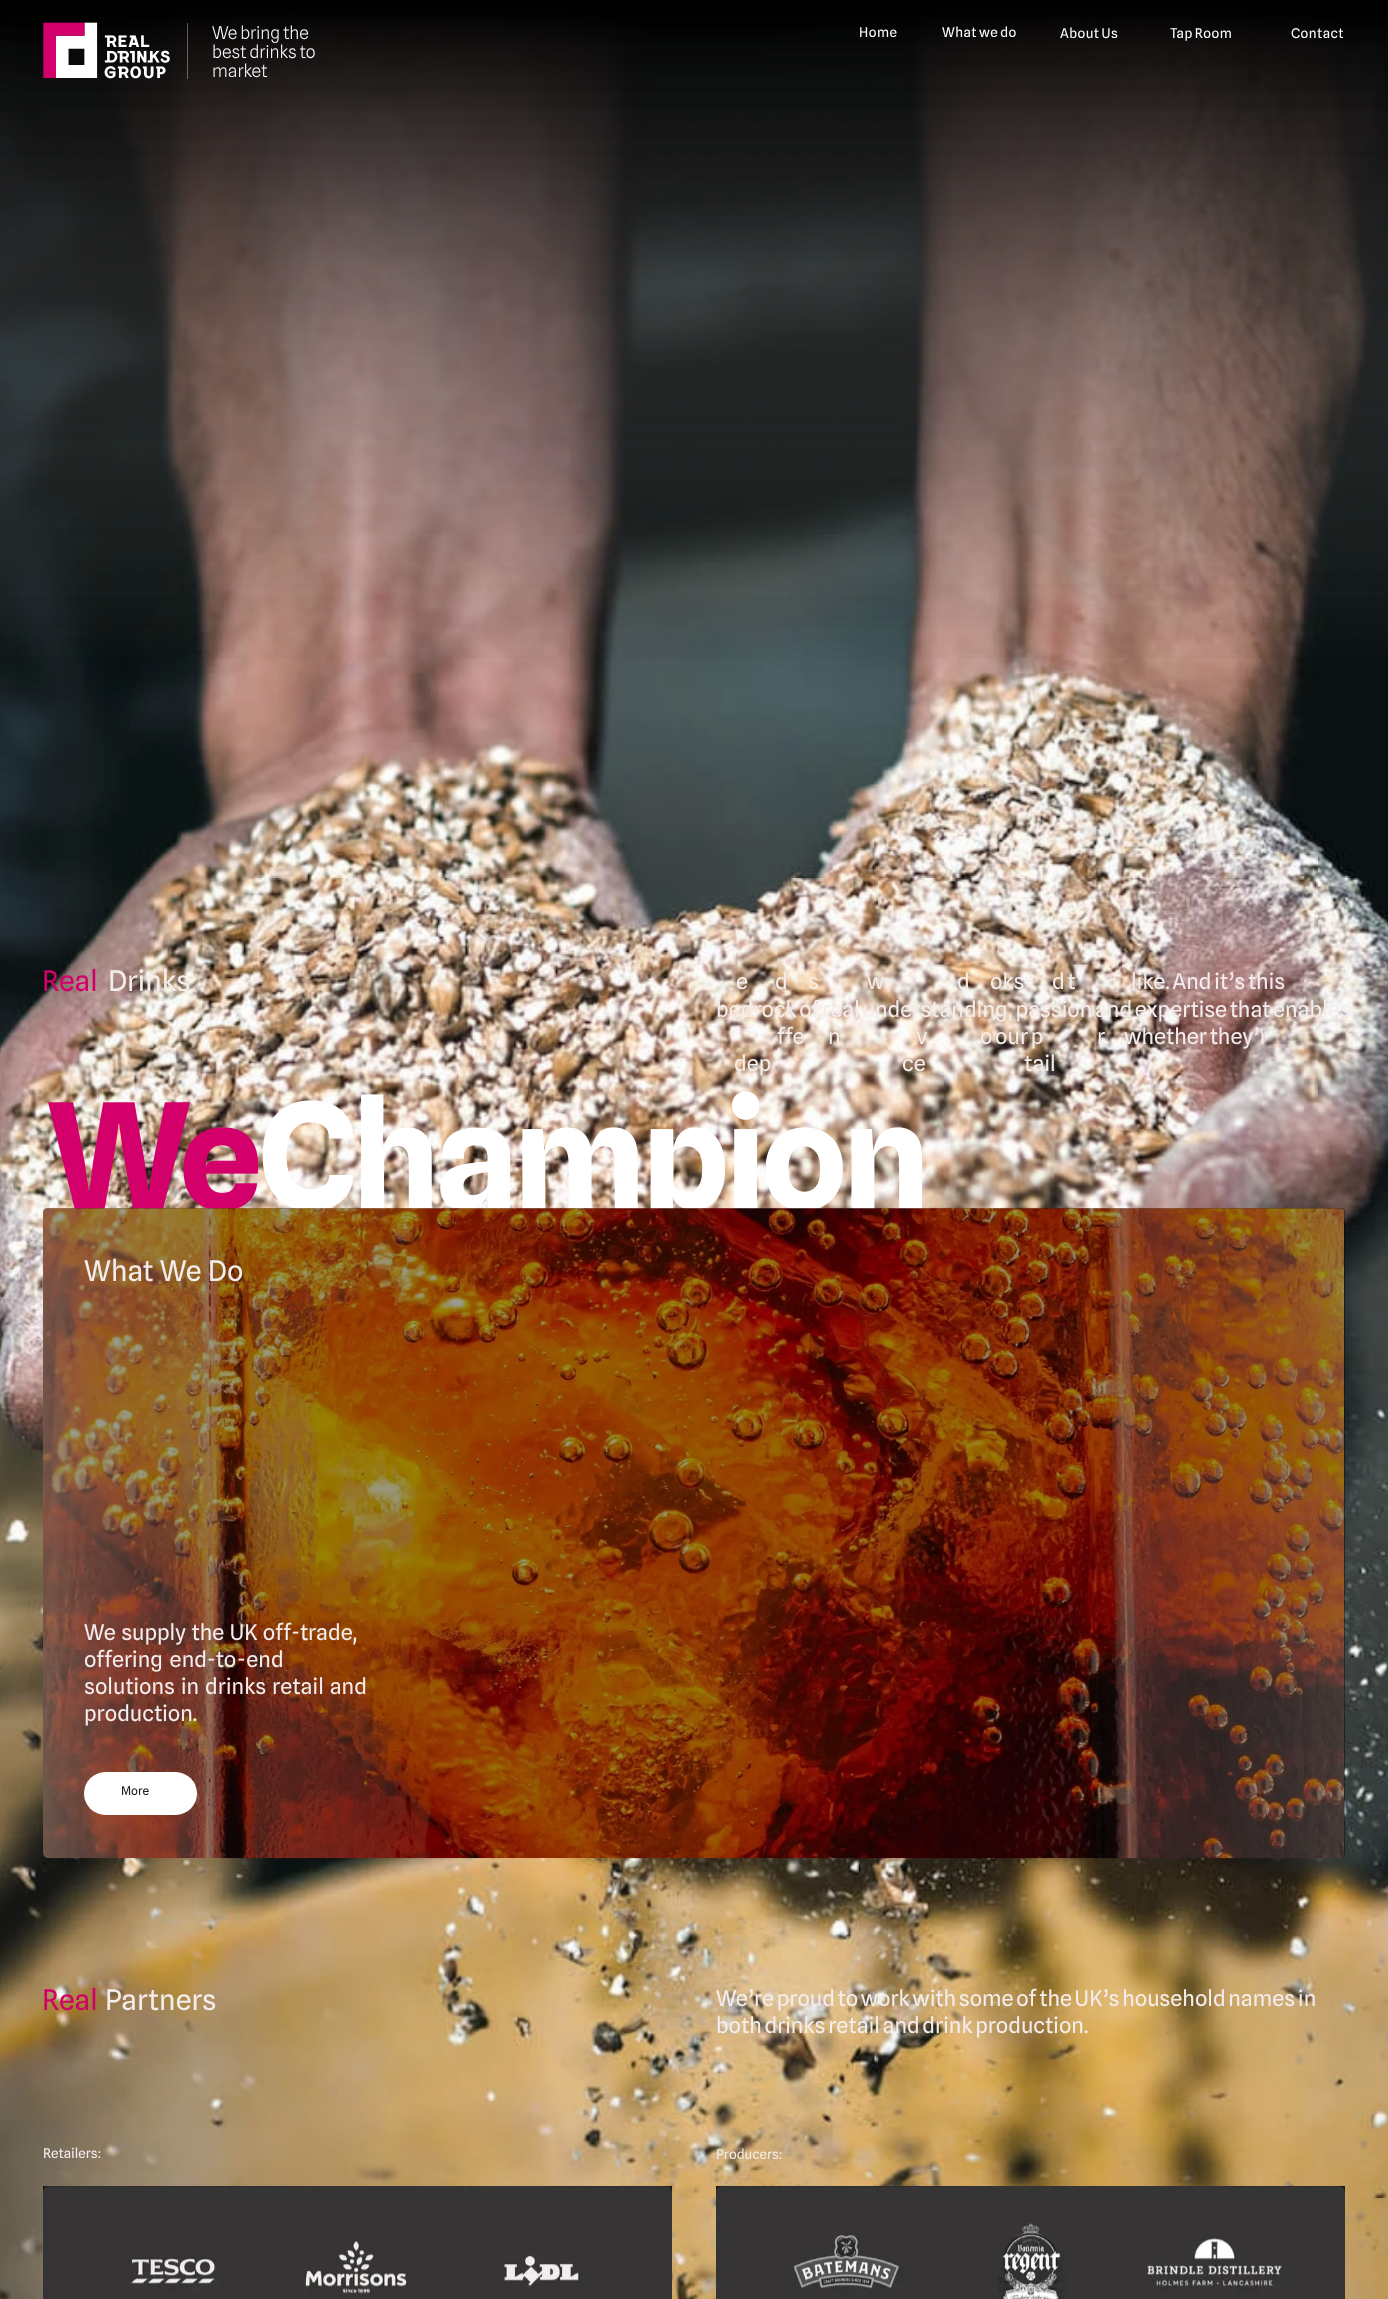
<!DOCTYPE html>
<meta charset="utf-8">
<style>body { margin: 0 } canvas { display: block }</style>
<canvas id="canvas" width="1388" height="2299"></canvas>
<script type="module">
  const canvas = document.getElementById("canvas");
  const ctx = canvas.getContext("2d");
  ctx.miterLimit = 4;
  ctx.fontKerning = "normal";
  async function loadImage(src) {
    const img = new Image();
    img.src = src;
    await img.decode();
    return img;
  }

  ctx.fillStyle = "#ffffff";
  ctx.fillRect(0, 0, 1388, 2299);
  ctx.drawImage(await loadImage("img1.png"), 0, 4, 1388, 2295);
  ctx.drawImage(await loadImage("img2.png"), 0, 0, 1388, 658);
  ctx.drawImage(await loadImage("img3.png"), 43, 22, 145, 57);
  ctx.font = "300 17.5px Spline Sans";
  ctx.fillText("We bring the", 212, 39);
  ctx.fillText("best drinks to", 212, 58);
  ctx.fillText("market", 212, 77);
  ctx.letterSpacing = "0.5px";
  ctx.font = "13.5px Spline Sans";
  ctx.fillText("Home", 859, 37);
  ctx.wordSpacing = "-1px";
  ctx.fillText("What we do", 942, 37);
  ctx.fillText("About Us", 1060, 38);
  ctx.fillText("Tap Room", 1170, 38);
  ctx.wordSpacing = "0px";
  ctx.fillText("Contact", 1291, 38);
  ctx.drawImage(await loadImage("img4.png"), 48, 1091, 875, 118);
  ctx.letterSpacing = "0px";
  ctx.font = "28.5px Spline Sans";
  ctx.fillStyle = "#d3006b";
  ctx.fillText("Real", 42, 991);
  ctx.fillStyle = "#f4eded";
  ctx.fillText("Drinks", 108, 991);
  ctx.wordSpacing = "-1.25px";
  ctx.font = "21.7px Spline Sans";
  ctx.fillText("e", 736, 989);
  ctx.fillText("d", 775, 989);
  ctx.fillText("s", 808, 989);
  ctx.fillText("w", 867, 989);
  ctx.fillText("d", 957, 989);
  ctx.fillText("oks", 990, 989);
  ctx.fillText("d t", 1052, 989);
  ctx.fillText("like. And it’s this", 1131, 989);
  ctx.fillText("bedrock of real understanding, passion and expertise that enables", 716, 1017);
  ctx.fillText("ffe", 777, 1044);
  ctx.fillText("n", 828, 1044);
  ctx.fillText("v", 916, 1044);
  ctx.fillText("o our p", 980, 1044);
  ctx.fillText("r", 1097, 1044);
  ctx.fillText("whether they’r", 1124, 1044);
  ctx.fillText("dep", 734, 1071);
  ctx.fillText("ce", 902, 1071);
  ctx.fillText("tail", 1024, 1071);
  ctx.drawImage(await loadImage("img5.png"), 43, 1208, 1301, 651);
  ctx.fillStyle = "rgba(0, 0, 0, 0.4)";
  ctx.beginPath();
  ctx.roundRect(43, 1208, 1302, 650, 4);
  ctx.fill();
  ctx.wordSpacing = "1px";
  ctx.font = "28.5px Spline Sans";
  ctx.fillStyle = "#f4eded";
  ctx.fillText("What We Do", 84, 1281);
  ctx.wordSpacing = "1.5px";
  ctx.font = "21.7px Spline Sans";
  ctx.fillText("We supply the UK off-trade,", 84, 1640);
  ctx.wordSpacing = "3px";
  ctx.fillText("offering end-to-end", 84, 1667);
  ctx.wordSpacing = "2px";
  ctx.fillText("solutions in drinks retail and", 84, 1694);
  ctx.wordSpacing = "0px";
  ctx.fillText("production.", 84, 1721);
  ctx.fillStyle = "#ffffff";
  ctx.beginPath();
  ctx.roundRect(84, 1772, 113, 43, 21.5);
  ctx.fill();
  ctx.font = "12px Spline Sans";
  ctx.fillStyle = "#1a1818";
  ctx.fillText("More", 121, 1795);
  ctx.font = "28.5px Spline Sans";
  ctx.fillStyle = "#d3006b";
  ctx.fillText("Real", 42, 2010);
  ctx.fillStyle = "#f4eded";
  ctx.fillText("Partners", 105, 2010);
  ctx.wordSpacing = "-1.25px";
  ctx.font = "21.7px Spline Sans";
  ctx.fillText("We’re proud to work with some of the UK’s household names in", 716, 2006);
  ctx.fillText("both drinks retail and drink production.", 716, 2033);
  ctx.wordSpacing = "0px";
  ctx.font = "13.5px Spline Sans";
  ctx.fillText("Retailers:", 43, 2158);
  ctx.fillText("Producers:", 716, 2159);
  ctx.fillStyle = "#1a1818";
  ctx.fillRect(43, 2186, 629, 7);
  ctx.drawImage(await loadImage("img6.png"), 43, 2186, 629, 113);
  ctx.fillRect(716, 2186, 629, 7);
  ctx.drawImage(await loadImage("img7.png"), 716, 2186, 629, 113);
</script>
